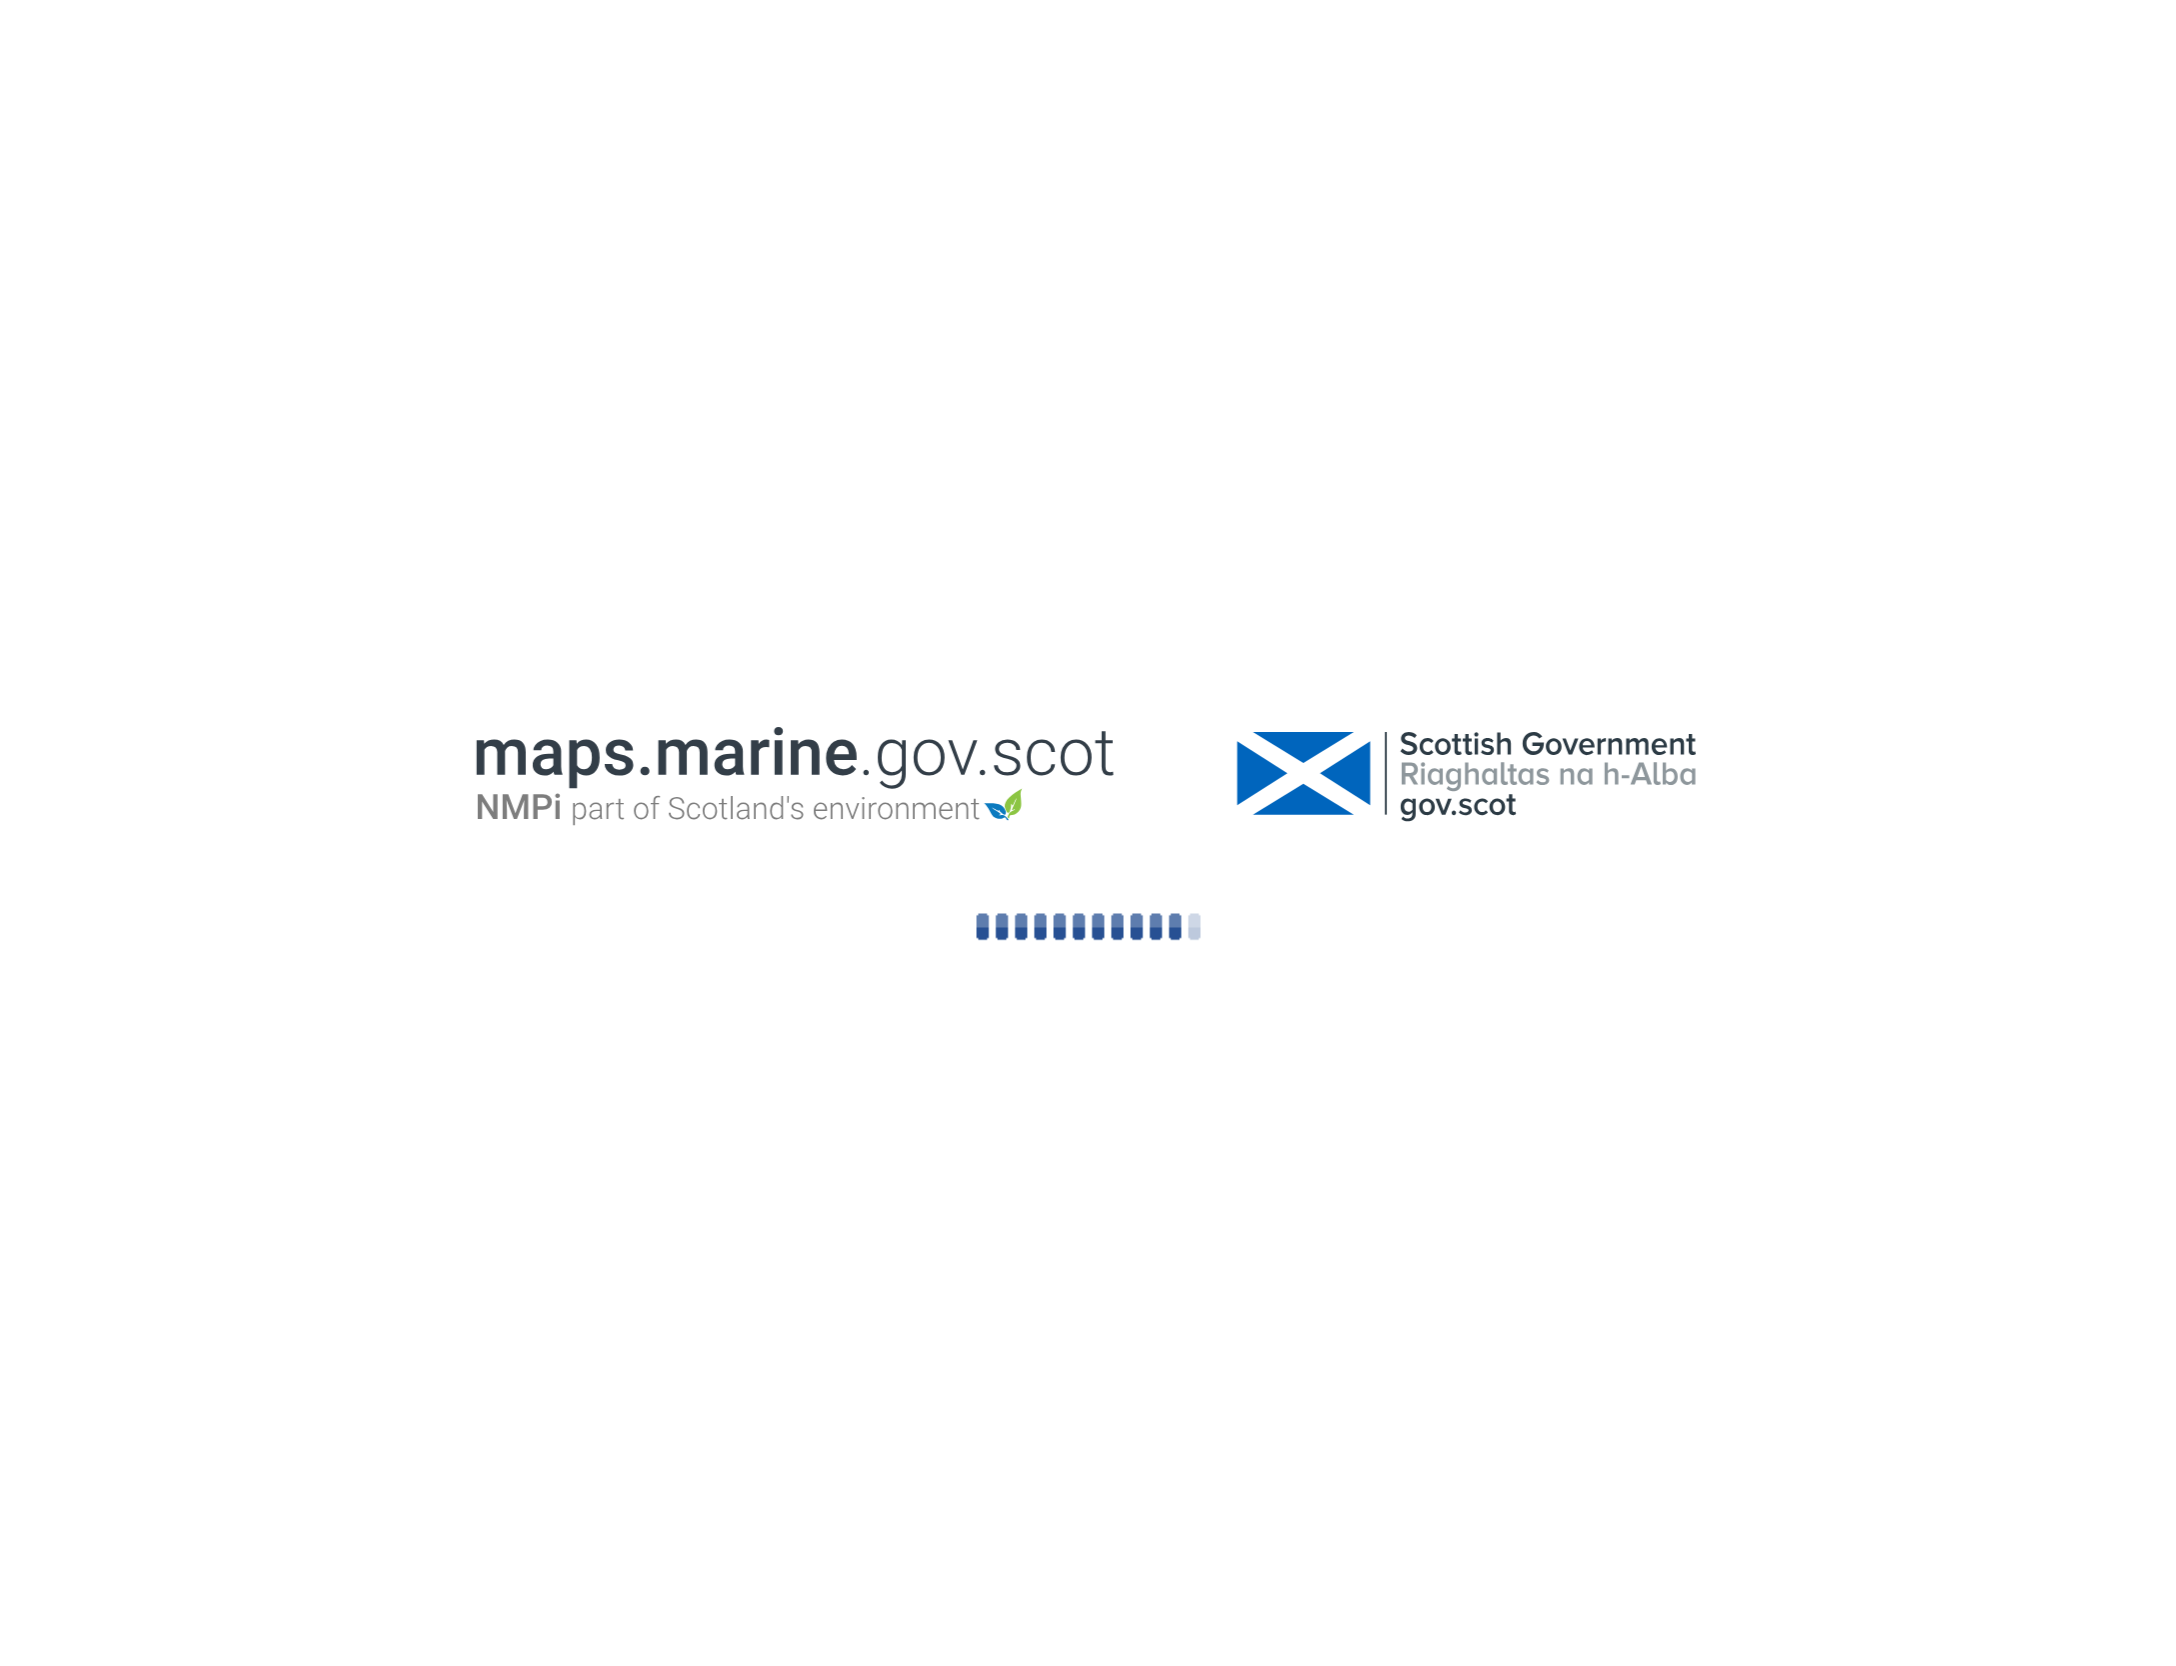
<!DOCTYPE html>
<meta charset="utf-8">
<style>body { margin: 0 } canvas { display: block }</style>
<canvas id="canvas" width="2176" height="1666"></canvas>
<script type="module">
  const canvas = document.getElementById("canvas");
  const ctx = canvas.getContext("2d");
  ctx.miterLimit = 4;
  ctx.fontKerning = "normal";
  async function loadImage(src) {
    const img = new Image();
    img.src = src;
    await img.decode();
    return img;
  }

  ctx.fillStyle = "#ffffff";
  ctx.fillRect(0, 0, 2176, 1666);
  ctx.drawImage(await loadImage("img1.png"), 475, 727, 1221, 99);
  ctx.drawImage(await loadImage("img2.png"), 976, 913, 225, 28);
</script>
